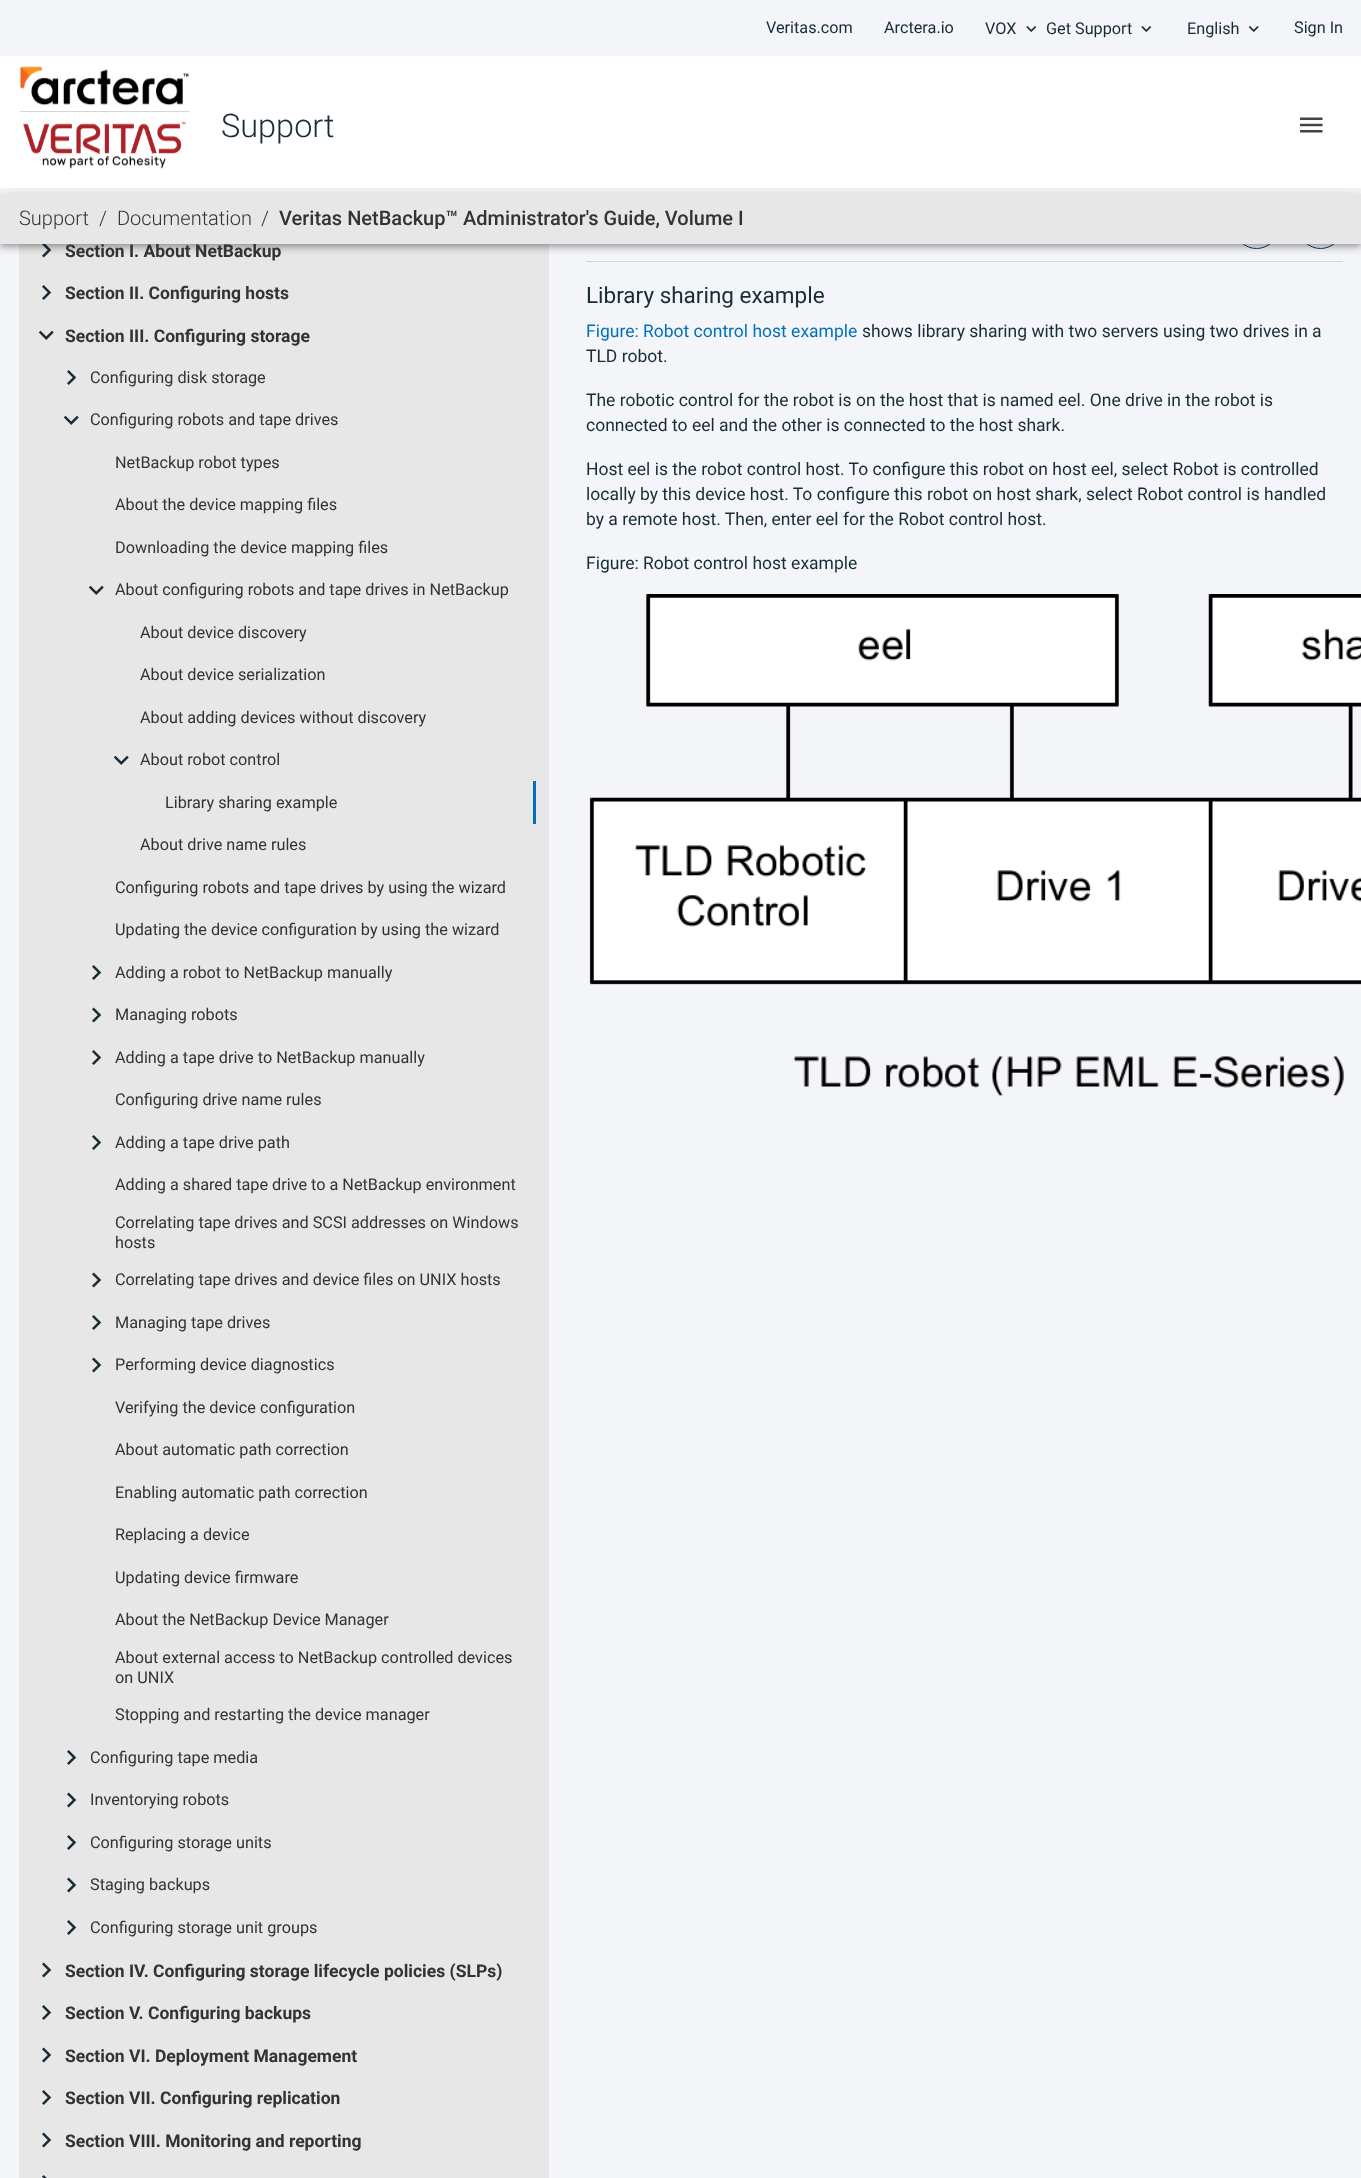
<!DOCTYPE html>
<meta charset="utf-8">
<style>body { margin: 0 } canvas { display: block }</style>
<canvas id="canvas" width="1361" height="2178"></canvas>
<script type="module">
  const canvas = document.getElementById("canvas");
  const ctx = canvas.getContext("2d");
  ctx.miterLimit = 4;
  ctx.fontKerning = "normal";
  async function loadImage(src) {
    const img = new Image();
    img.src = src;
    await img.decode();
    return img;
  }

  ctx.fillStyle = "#f4f5f8";
  ctx.fillRect(0, 0, 1361, 2178);
  ctx.font = "16.25px Roboto";
  ctx.fillStyle = "#182c35";
  ctx.fillText("Veritas.com", 766, 33);
  ctx.fillText("Arctera.io", 884, 33);
  ctx.fillText("VOX", 985, 34);
  ctx.drawImage(await loadImage("img1.png"), 1026, 26, 11, 6);
  ctx.fillText("Get Support", 1046, 34);
  ctx.drawImage(await loadImage("img1.png"), 1141, 26, 11, 6);
  ctx.fillText("English", 1187, 34);
  ctx.drawImage(await loadImage("img2.png"), 1248, 26, 11, 6);
  ctx.fillText("Sign In", 1294, 33);
  ctx.fillStyle = "#e7e7e7";
  ctx.fillRect(19, 244, 530, 1934);
  ctx.drawImage(await loadImage("img6.png"), 42, 244, 10, 14);
  ctx.fillStyle = "#d5d5d5";
  ctx.fillRect(586, 261, 757, 1);
  ctx.beginPath();
  ctx.arc(1256.5, 226.5, 22, 0, Math.PI * 2);
  ctx.strokeStyle = "#004677";
  ctx.stroke();
  ctx.beginPath();
  ctx.arc(1320.5, 226.5, 22, 0, Math.PI * 2);
  ctx.stroke();
  ctx.fillStyle = "rgba(0, 0, 0, 0.12)";
  ctx.filter = "blur(6px)";
  ctx.beginPath();
  ctx.rect(0, 195, 1361, 50);
  ctx.fill();
  ctx.filter = "none";
  ctx.fillStyle = "#ffffff";
  ctx.fillRect(0, 56, 1361, 132);
  ctx.drawImage(await loadImage("img3.png"), 20, 66, 169, 40);
  ctx.fillStyle = "#d5d5d5";
  ctx.fillRect(20, 111, 169, 1);
  ctx.drawImage(await loadImage("img4.png"), 23, 121, 163, 48);
  ctx.font = "300 32.5px Roboto";
  ctx.fillStyle = "#182c35";
  ctx.fillText("Support", 221, 137);
  ctx.drawImage(await loadImage("img5.png"), 1300, 117, 23, 16);
  ctx.fillStyle = "rgba(0, 0, 0, 0.14)";
  ctx.filter = "blur(3px)";
  ctx.beginPath();
  ctx.rect(0, 199, 1361, 50);
  ctx.fill();
  ctx.filter = "none";
  ctx.fillStyle = "rgba(0, 0, 0, 0.2)";
  ctx.filter = "blur(2.5px)";
  ctx.beginPath();
  ctx.rect(1, 198, 1359, 47);
  ctx.fill();
  ctx.filter = "none";
  ctx.font = "bold 17.5px Roboto";
  ctx.fillStyle = "#333333";
  ctx.fillText("Section I. About NetBackup", 65, 257);
  ctx.fillStyle = "#e7e7e7";
  ctx.fillRect(0, 194, 1361, 50);
  ctx.font = "300 20px Roboto";
  ctx.fillStyle = "#333333";
  ctx.fillText("Support", 19, 225);
  ctx.fillText("/", 99, 225);
  ctx.fillText("Documentation", 117, 225);
  ctx.fillText("/", 261, 225);
  ctx.font = "500 20px Roboto";
  ctx.fillText("Veritas NetBackup™ Administrator's Guide, Volume I", 279, 225);
  ctx.drawImage(await loadImage("img7.png"), 42, 285, 10, 15);
  ctx.font = "bold 17.5px Roboto";
  ctx.fillText("Section II. Configuring hosts", 65, 299);
  ctx.drawImage(await loadImage("img8.png"), 38, 330, 16, 10);
  ctx.fillText("Section III. Configuring storage", 65, 342);
  ctx.drawImage(await loadImage("img7.png"), 67, 370, 10, 15);
  ctx.font = "16.25px Roboto";
  ctx.fillText("Configuring disk storage", 90, 383);
  ctx.drawImage(await loadImage("img8.png"), 63, 415, 16, 10);
  ctx.fillText("Configuring robots and tape drives", 90, 425);
  ctx.fillText("NetBackup robot types", 115, 468);
  ctx.fillText("About the device mapping files", 115, 510);
  ctx.fillText("Downloading the device mapping files", 115, 553);
  ctx.drawImage(await loadImage("img8.png"), 88, 585, 16, 10);
  ctx.fillText("About configuring robots and tape drives in NetBackup", 115, 595);
  ctx.fillText("About device discovery", 140, 638);
  ctx.fillText("About device serialization", 140, 680);
  ctx.fillText("About adding devices without discovery", 140, 723);
  ctx.drawImage(await loadImage("img8.png"), 113, 755, 16, 10);
  ctx.fillText("About robot control", 140, 765);
  ctx.fillStyle = "#0070bd";
  ctx.fillRect(533, 781, 3, 43);
  ctx.fillStyle = "#333333";
  ctx.fillText("Library sharing example", 165, 808);
  ctx.fillText("About drive name rules", 140, 850);
  ctx.fillText("Configuring robots and tape drives by using the wizard", 115, 893);
  ctx.fillText("Updating the device configuration by using the wizard", 115, 935);
  ctx.drawImage(await loadImage("img7.png"), 92, 965, 10, 15);
  ctx.fillText("Adding a robot to NetBackup manually", 115, 978);
  ctx.drawImage(await loadImage("img9.png"), 92, 1007, 10, 16);
  ctx.fillText("Managing robots", 115, 1020);
  ctx.drawImage(await loadImage("img7.png"), 92, 1050, 10, 15);
  ctx.fillText("Adding a tape drive to NetBackup manually", 115, 1063);
  ctx.fillText("Configuring drive name rules", 115, 1105);
  ctx.drawImage(await loadImage("img7.png"), 92, 1135, 10, 15);
  ctx.fillText("Adding a tape drive path", 115, 1148);
  ctx.fillText("Adding a shared tape drive to a NetBackup environment", 115, 1190);
  ctx.fillText("Correlating tape drives and SCSI addresses on Windows", 115, 1228);
  ctx.fillText("hosts", 115, 1248);
  ctx.drawImage(await loadImage("img9.png"), 92, 1272, 10, 16);
  ctx.fillText("Correlating tape drives and device files on UNIX hosts", 115, 1285);
  ctx.drawImage(await loadImage("img7.png"), 92, 1315, 10, 15);
  ctx.fillText("Managing tape drives", 115, 1328);
  ctx.drawImage(await loadImage("img9.png"), 92, 1357, 10, 16);
  ctx.fillText("Performing device diagnostics", 115, 1370);
  ctx.fillText("Verifying the device configuration", 115, 1413);
  ctx.fillText("About automatic path correction", 115, 1455);
  ctx.fillText("Enabling automatic path correction", 115, 1498);
  ctx.fillText("Replacing a device", 115, 1540);
  ctx.fillText("Updating device firmware", 115, 1583);
  ctx.fillText("About the NetBackup Device Manager", 115, 1625);
  ctx.fillText("About external access to NetBackup controlled devices", 115, 1663);
  ctx.fillText("on UNIX", 115, 1683);
  ctx.fillText("Stopping and restarting the device manager", 115, 1720);
  ctx.drawImage(await loadImage("img7.png"), 67, 1750, 10, 15);
  ctx.fillText("Configuring tape media", 90, 1763);
  ctx.drawImage(await loadImage("img9.png"), 67, 1792, 10, 16);
  ctx.fillText("Inventorying robots", 90, 1805);
  ctx.drawImage(await loadImage("img7.png"), 67, 1835, 10, 15);
  ctx.fillText("Configuring storage units", 90, 1848);
  ctx.drawImage(await loadImage("img9.png"), 67, 1877, 10, 16);
  ctx.fillText("Staging backups", 90, 1890);
  ctx.drawImage(await loadImage("img7.png"), 67, 1920, 10, 15);
  ctx.fillText("Configuring storage unit groups", 90, 1933);
  ctx.drawImage(await loadImage("img9.png"), 42, 1962, 10, 16);
  ctx.font = "bold 17.5px Roboto";
  ctx.fillText("Section IV. Configuring storage lifecycle policies (SLPs)", 65, 1977);
  ctx.drawImage(await loadImage("img7.png"), 42, 2005, 10, 15);
  ctx.fillText("Section V. Configuring backups", 65, 2019);
  ctx.drawImage(await loadImage("img9.png"), 42, 2047, 10, 16);
  ctx.fillText("Section VI. Deployment Management", 65, 2062);
  ctx.drawImage(await loadImage("img7.png"), 42, 2090, 10, 15);
  ctx.fillText("Section VII. Configuring replication", 65, 2104);
  ctx.drawImage(await loadImage("img9.png"), 42, 2132, 10, 16);
  ctx.fillText("Section VIII. Monitoring and reporting", 65, 2147);
  ctx.drawImage(await loadImage("img10.png"), 42, 2175, 5, 3);
  ctx.font = "22.5px Roboto";
  ctx.fillStyle = "#182c35";
  ctx.fillText("Library sharing example", 586, 303);
  ctx.font = "17.5px Roboto";
  ctx.fillStyle = "#0070bd";
  ctx.fillText("Figure: Robot control host example", 586, 337);
  ctx.fillStyle = "#182c35";
  ctx.fillText("shows library sharing with two servers using two drives in a", 862, 337);
  ctx.fillText("TLD robot.", 586, 362);
  ctx.fillText("The robotic control for the robot is on the host that is named eel. One drive in the robot is", 586, 406);
  ctx.fillText("connected to eel and the other is connected to the host shark.", 586, 431);
  ctx.fillText("Host eel is the robot control host. To configure this robot on host eel, select Robot is controlled", 586, 475);
  ctx.fillText("locally by this device host. To configure this robot on host shark, select Robot control is handled", 586, 500);
  ctx.fillText("by a remote host. Then, enter eel for the Robot control host.", 586, 525);
  ctx.fillText("Figure: Robot control host example", 586, 569);
  ctx.drawImage(await loadImage("img11.png"), 589, 594, 772, 502);
</script>
